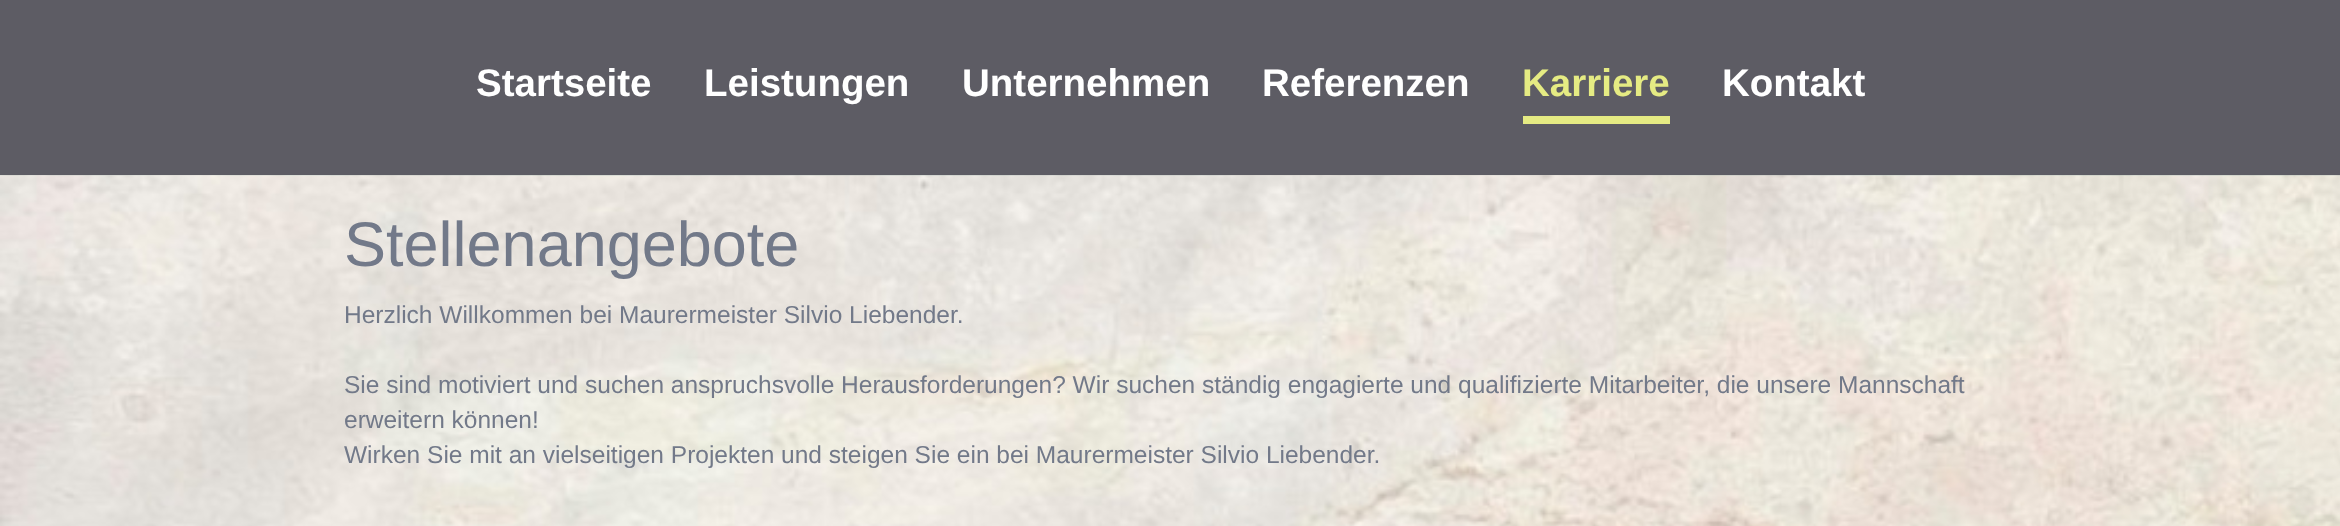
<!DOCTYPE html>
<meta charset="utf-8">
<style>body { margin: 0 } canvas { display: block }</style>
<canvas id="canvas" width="2340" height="526"></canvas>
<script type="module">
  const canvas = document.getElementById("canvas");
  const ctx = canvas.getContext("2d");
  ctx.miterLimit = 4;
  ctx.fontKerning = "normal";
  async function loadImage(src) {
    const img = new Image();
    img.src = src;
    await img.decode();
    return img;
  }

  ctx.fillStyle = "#ffffff";
  ctx.fillRect(0, 0, 2340, 526);
  ctx.drawImage(await loadImage("img1.png"), 0, 175, 2340, 351);
  ctx.fillStyle = "#5d5c64";
  ctx.fillRect(0, 0, 2340, 175);
  ctx.font = "bold 38.5px Liberation Sans";
  ctx.fillStyle = "#ffffff";
  ctx.fillText("Startseite", 476, 96);
  ctx.fillText("Leistungen", 704, 96);
  ctx.fillText("Unternehmen", 962, 96);
  ctx.fillText("Referenzen", 1262, 96);
  ctx.fillStyle = "#e5eb83";
  ctx.fillRect(1523, 116, 147, 8);
  ctx.fillText("Karriere", 1522, 96);
  ctx.fillStyle = "#ffffff";
  ctx.fillText("Kontakt", 1722, 96);
  ctx.font = "63px Liberation Sans";
  ctx.fillStyle = "#727989";
  ctx.fillText("Stellenangebote", 344, 266);
  ctx.font = "24.5px Liberation Sans";
  ctx.fillText("Herzlich Willkommen bei Maurermeister Silvio Liebender.", 344, 323);
  ctx.fillText("Sie sind motiviert und suchen anspruchsvolle Herausforderungen? Wir suchen ständig engagierte und qualifizierte Mitarbeiter, die unsere Mannschaft", 344, 393);
  ctx.fillText("erweitern können!", 344, 428);
  ctx.fillText("Wirken Sie mit an vielseitigen Projekten und steigen Sie ein bei Maurermeister Silvio Liebender.", 344, 463);
</script>
